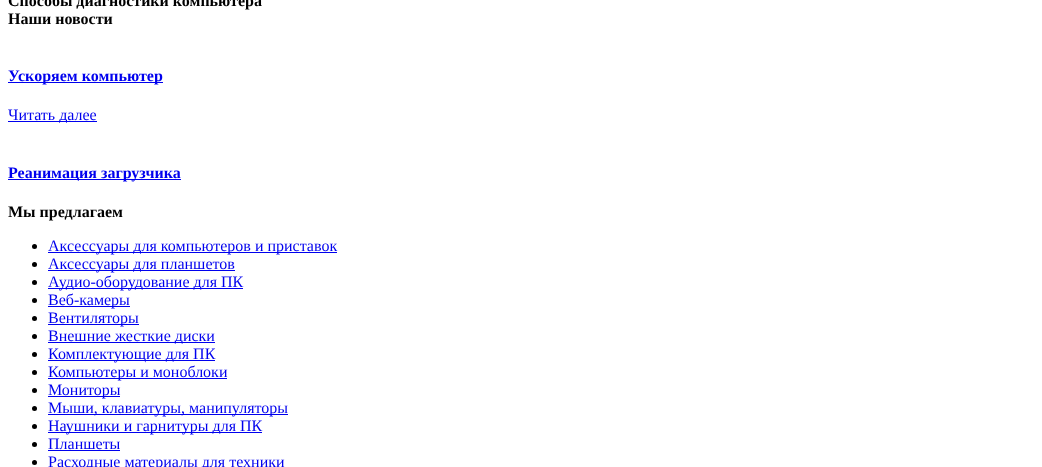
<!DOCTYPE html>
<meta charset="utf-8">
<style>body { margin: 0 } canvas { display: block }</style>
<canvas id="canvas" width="1042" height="467"></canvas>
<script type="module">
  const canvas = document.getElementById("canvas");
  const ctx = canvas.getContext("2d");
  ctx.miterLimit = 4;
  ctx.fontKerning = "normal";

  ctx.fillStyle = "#ffffff";
  ctx.fillRect(0, 0, 1042, 467);
  ctx.font = "bold 16px Liberation Serif";
  ctx.fillStyle = "#000000";
  ctx.fillText("Способы диагностики компьютера", 8, 6);
  ctx.fillText("Наши новости", 8, 24);
  ctx.fillStyle = "#0000ee";
  ctx.fillRect(8, 82, 155, 1);
  ctx.fillText("Ускоряем компьютер", 8, 81);
  ctx.fillRect(8, 121, 89, 1);
  ctx.font = "16px Liberation Serif";
  ctx.fillText("Читать далее", 8, 120);
  ctx.fillRect(8, 179, 173, 1);
  ctx.font = "bold 16px Liberation Serif";
  ctx.fillText("Реанимация загрузчика", 8, 178);
  ctx.fillStyle = "#000000";
  ctx.fillText("Мы предлагаем", 8, 217);
  ctx.beginPath();
  ctx.arc(34.5, 246.5, 2.5, 0, Math.PI * 2);
  ctx.fill();
  ctx.fillStyle = "#0000ee";
  ctx.fillRect(48, 252, 289, 1);
  ctx.font = "16px Liberation Serif";
  ctx.fillText("Аксессуары для компьютеров и приставок", 48, 251);
  ctx.fillStyle = "#000000";
  ctx.beginPath();
  ctx.arc(34.5, 264.5, 2.5, 0, Math.PI * 2);
  ctx.fill();
  ctx.fillStyle = "#0000ee";
  ctx.fillRect(48, 270, 187, 1);
  ctx.fillText("Аксессуары для планшетов", 48, 269);
  ctx.fillStyle = "#000000";
  ctx.beginPath();
  ctx.arc(34.5, 282.5, 2.5, 0, Math.PI * 2);
  ctx.fill();
  ctx.fillStyle = "#0000ee";
  ctx.fillRect(48, 288, 195, 1);
  ctx.fillText("Аудио-оборудование для ПК", 48, 287);
  ctx.fillStyle = "#000000";
  ctx.beginPath();
  ctx.arc(34.5, 300.5, 2.5, 0, Math.PI * 2);
  ctx.fill();
  ctx.fillStyle = "#0000ee";
  ctx.fillRect(48, 306, 82, 1);
  ctx.fillText("Веб-камеры", 48, 305);
  ctx.fillStyle = "#000000";
  ctx.beginPath();
  ctx.arc(34.5, 318.5, 2.5, 0, Math.PI * 2);
  ctx.fill();
  ctx.fillStyle = "#0000ee";
  ctx.fillRect(48, 324, 91, 1);
  ctx.fillText("Вентиляторы", 48, 323);
  ctx.fillStyle = "#000000";
  ctx.beginPath();
  ctx.arc(34.5, 336.5, 2.5, 0, Math.PI * 2);
  ctx.fill();
  ctx.fillStyle = "#0000ee";
  ctx.fillRect(48, 342, 167, 1);
  ctx.fillText("Внешние жесткие диски", 48, 341);
  ctx.fillStyle = "#000000";
  ctx.beginPath();
  ctx.arc(34.5, 354.5, 2.5, 0, Math.PI * 2);
  ctx.fill();
  ctx.fillStyle = "#0000ee";
  ctx.fillRect(48, 360, 167, 1);
  ctx.fillText("Комплектующие для ПК", 48, 359);
  ctx.fillStyle = "#000000";
  ctx.beginPath();
  ctx.arc(34.5, 372.5, 2.5, 0, Math.PI * 2);
  ctx.fill();
  ctx.fillStyle = "#0000ee";
  ctx.fillRect(48, 378, 179, 1);
  ctx.fillText("Компьютеры и моноблоки", 48, 377);
  ctx.fillStyle = "#000000";
  ctx.beginPath();
  ctx.arc(34.5, 390.5, 2.5, 0, Math.PI * 2);
  ctx.fill();
  ctx.fillStyle = "#0000ee";
  ctx.fillRect(48, 396, 72, 1);
  ctx.fillText("Мониторы", 48, 395);
  ctx.fillStyle = "#000000";
  ctx.beginPath();
  ctx.arc(34.5, 408.5, 2.5, 0, Math.PI * 2);
  ctx.fill();
  ctx.fillStyle = "#0000ee";
  ctx.fillRect(48, 414, 240, 1);
  ctx.fillText("Мыши, клавиатуры, манипуляторы", 48, 413);
  ctx.fillStyle = "#000000";
  ctx.beginPath();
  ctx.arc(34.5, 426.5, 2.5, 0, Math.PI * 2);
  ctx.fill();
  ctx.fillStyle = "#0000ee";
  ctx.fillRect(48, 432, 214, 1);
  ctx.fillText("Наушники и гарнитуры для ПК", 48, 431);
  ctx.fillStyle = "#000000";
  ctx.beginPath();
  ctx.arc(34.5, 444.5, 2.5, 0, Math.PI * 2);
  ctx.fill();
  ctx.fillStyle = "#0000ee";
  ctx.fillText("Планшеты", 48, 449);
  ctx.fillRect(48, 450, 72, 1);
  ctx.fillStyle = "#000000";
  ctx.beginPath();
  ctx.arc(34.5, 462.5, 2.5, 0, Math.PI * 2);
  ctx.fill();
  ctx.fillStyle = "#0000ee";
  ctx.fillText("Расходные материалы для техники", 48, 467);
</script>
